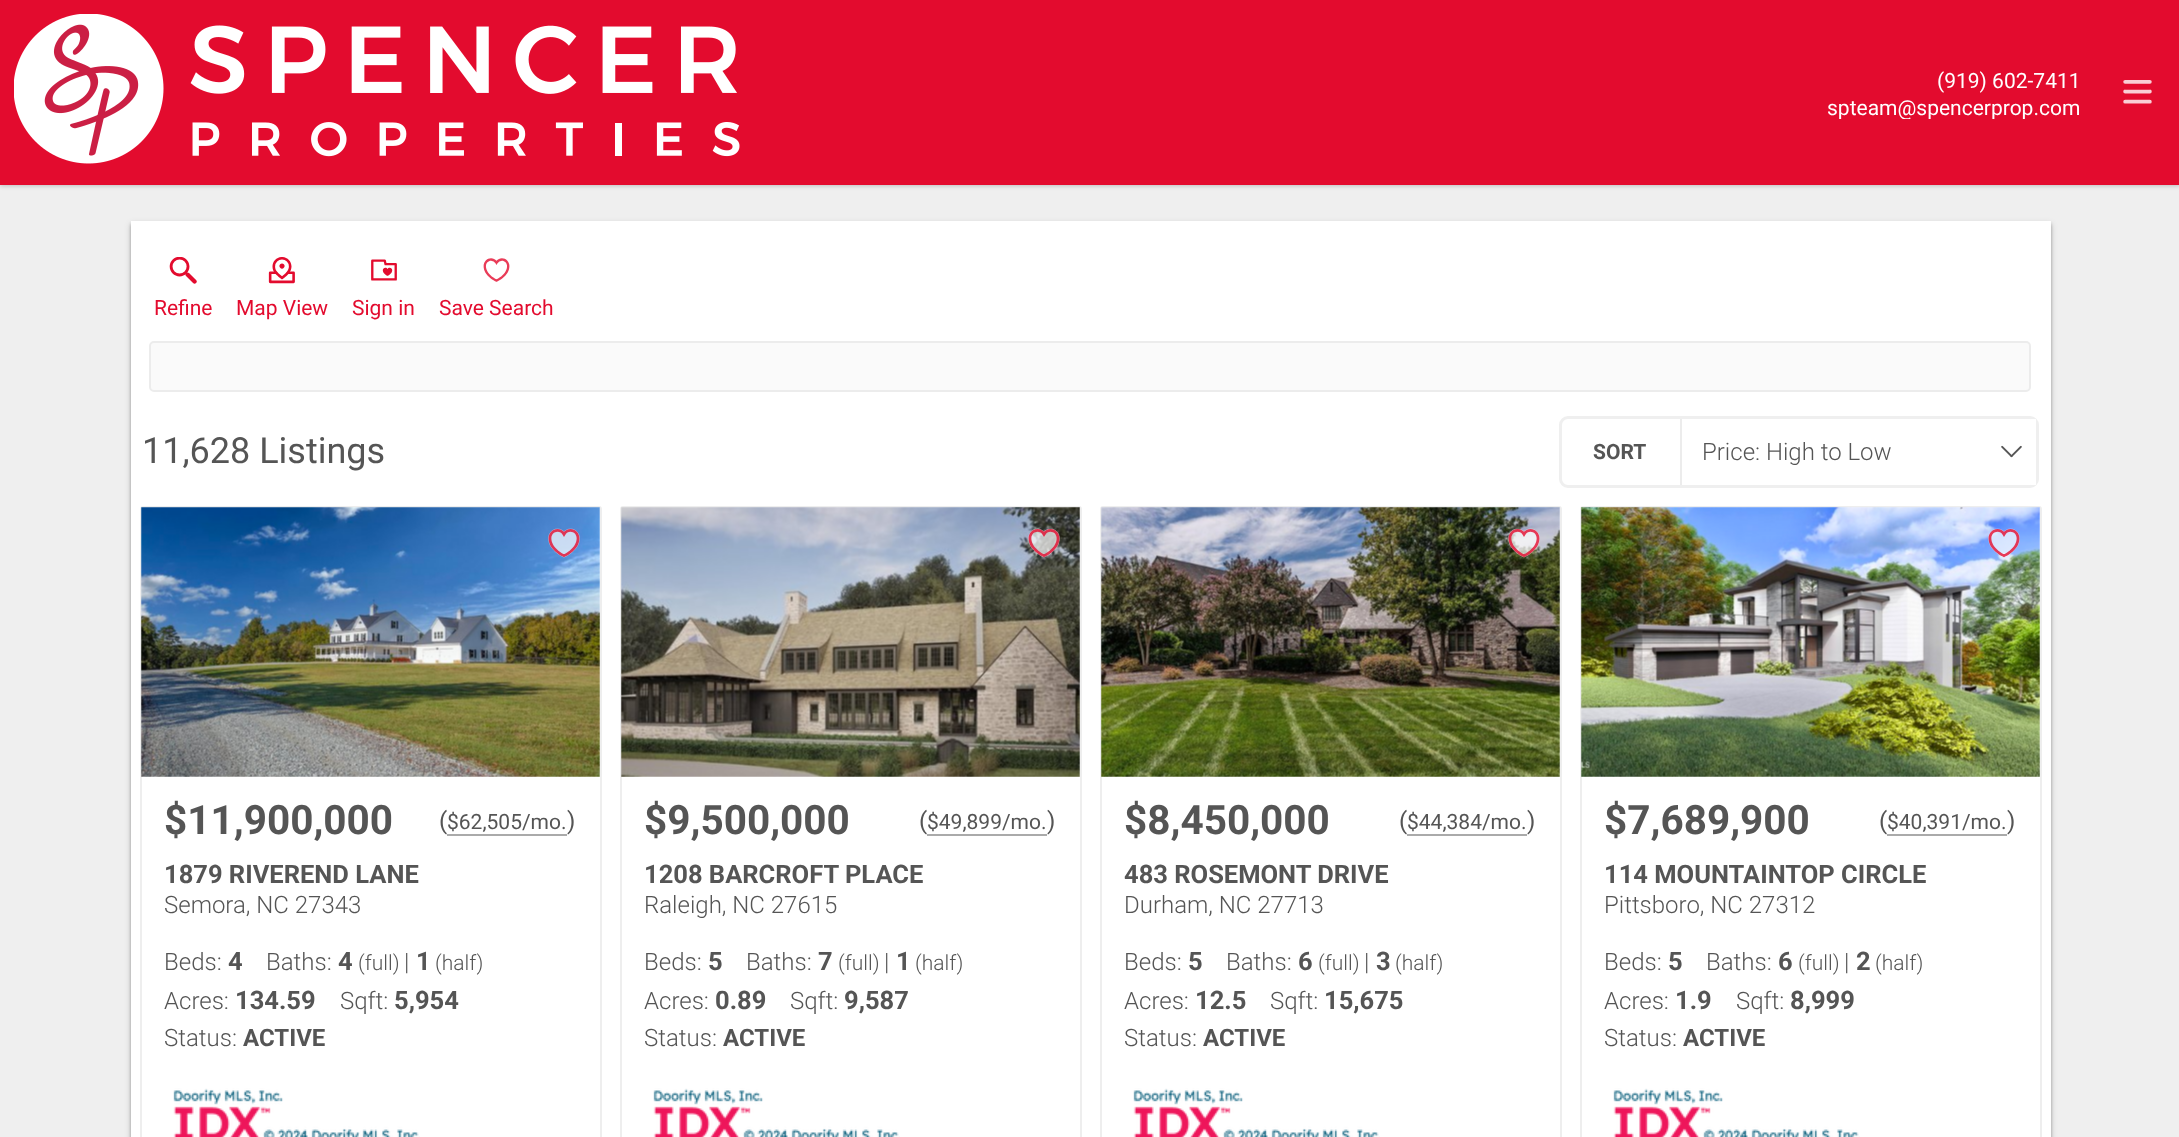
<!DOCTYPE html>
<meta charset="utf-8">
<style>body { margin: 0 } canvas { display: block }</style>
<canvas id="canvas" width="2179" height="1137"></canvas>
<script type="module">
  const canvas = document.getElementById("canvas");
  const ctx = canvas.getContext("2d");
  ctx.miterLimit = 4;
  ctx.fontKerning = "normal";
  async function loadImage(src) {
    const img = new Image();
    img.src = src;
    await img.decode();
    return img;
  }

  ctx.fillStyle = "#efefef";
  ctx.fillRect(0, 0, 2179, 1137);
  ctx.fillStyle = "rgba(0, 0, 0, 0.2)";
  ctx.filter = "blur(2px)";
  ctx.beginPath();
  ctx.rect(0, 2, 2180, 184);
  ctx.fill();
  ctx.filter = "none";
  ctx.fillStyle = "#e30b2e";
  ctx.fillRect(0, 0, 2179, 185);
  ctx.drawImage(await loadImage("img1.png"), 14, 14, 726, 150);
  ctx.font = "21px Roboto";
  ctx.fillStyle = "#ffffff";
  ctx.fillText("(919) 602-7411", 1937, 88);
  ctx.save();
  ctx.beginPath();
  ctx.rect(1827, 65, 254, 54);
  ctx.clip();
  ctx.fillText("spteam@spencerprop.com", 1827, 115);
  ctx.restore();
  ctx.drawImage(await loadImage("img2.png"), 2123, 80, 29, 24);
  ctx.fillStyle = "rgba(0, 0, 0, 0.25)";
  ctx.filter = "blur(1.5px)";
  ctx.beginPath();
  ctx.rect(131, 224, 1920, 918);
  ctx.fill();
  ctx.filter = "none";
  ctx.fillStyle = "rgba(0, 0, 0, 0.2)";
  ctx.filter = "blur(3px)";
  ctx.beginPath();
  ctx.rect(131, 224, 1920, 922);
  ctx.fill();
  ctx.filter = "none";
  ctx.fillStyle = "#ffffff";
  ctx.fillRect(131, 221, 1920, 916);
  ctx.drawImage(await loadImage("img3.png"), 169, 257, 28, 27);
  ctx.fillStyle = "#e30b2e";
  ctx.fillText("Refine", 154, 315);
  ctx.drawImage(await loadImage("img4.png"), 268, 257, 27, 27);
  ctx.fillText("Map View", 236, 315);
  ctx.drawImage(await loadImage("img5.png"), 371, 259, 26, 22);
  ctx.fillText("Sign in", 352, 315);
  ctx.drawImage(await loadImage("img6.png"), 483, 258, 27, 24);
  ctx.fillText("Save Search", 439, 315);
  ctx.fillStyle = "#fafafa";
  ctx.beginPath();
  ctx.roundRect(150, 342, 1880, 49, 4);
  ctx.fill();
  ctx.strokeStyle = "#ececec";
  ctx.lineWidth = 2;
  ctx.stroke();
  ctx.font = "36px Roboto";
  ctx.fillStyle = "#555555";
  ctx.fillText("11,628 Listings", 142, 463);
  ctx.beginPath();
  ctx.roundRect(1560.5, 417.5, 477, 69, 7.5);
  ctx.strokeStyle = "#efefef";
  ctx.lineWidth = 3;
  ctx.stroke();
  ctx.font = "bold 21px Roboto";
  ctx.fillText("SORT", 1593, 459);
  ctx.fillStyle = "#ffffff";
  ctx.fillRect(2031, 419, 5, 66);
  ctx.fillStyle = "#ececec";
  ctx.fillRect(1680, 419, 2, 66);
  ctx.font = "300 24px Roboto";
  ctx.fillStyle = "#555555";
  ctx.fillText("Price: High to Low", 1702, 460);
  ctx.drawImage(await loadImage("img7.png"), 2001, 445, 21, 13);
  ctx.beginPath();
  ctx.roundRect(141, 507, 460, 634, 2);
  ctx.strokeStyle = "#eeeeee";
  ctx.lineWidth = 2;
  ctx.stroke();
  ctx.drawImage(await loadImage("img8.png"), 141, 507, 459, 270);
  ctx.drawImage(await loadImage("img9.png"), 548, 528, 32, 30);
  ctx.font = "bold 40.5px Roboto";
  ctx.fillText("$11,900,000", 164, 834);
  ctx.font = "24px Roboto";
  ctx.fillText("(", 439, 829);
  ctx.fillStyle = "#aaaaaa";
  ctx.fillRect(447, 834, 120, 2);
  ctx.font = "21px Roboto";
  ctx.fillStyle = "#555555";
  ctx.fillText("$62,505/mo.", 447, 829);
  ctx.font = "24px Roboto";
  ctx.fillText(")", 567, 829);
  ctx.font = "bold 25.5px Roboto";
  ctx.fillText("1879 RIVEREND LANE", 164, 883);
  ctx.font = "300 24px Roboto";
  ctx.fillText("Semora, NC 27343", 164, 913);
  ctx.fillText("Beds:", 164, 970);
  ctx.font = "bold 25.5px Roboto";
  ctx.fillText("4", 228, 970);
  ctx.font = "300 24px Roboto";
  ctx.fillText("Baths:", 266, 970);
  ctx.font = "bold 25.5px Roboto";
  ctx.fillText("4", 338, 970);
  ctx.font = "300 21px Roboto";
  ctx.fillText("(full)", 358, 970);
  ctx.font = "300 24px Roboto";
  ctx.fillText("|", 404, 970);
  ctx.font = "bold 25.5px Roboto";
  ctx.fillText("1", 416, 970);
  ctx.font = "300 21px Roboto";
  ctx.fillText("(half)", 435, 970);
  ctx.font = "300 24px Roboto";
  ctx.fillText("Acres:", 164, 1009);
  ctx.font = "bold 25.5px Roboto";
  ctx.fillText("134.59", 235, 1009);
  ctx.font = "300 24px Roboto";
  ctx.fillText("Sqft:", 340, 1009);
  ctx.font = "bold 25.5px Roboto";
  ctx.fillText("5,954", 394, 1009);
  ctx.font = "300 24px Roboto";
  ctx.fillText("Status:", 164, 1046);
  ctx.font = "bold 24px Roboto";
  ctx.fillText("ACTIVE", 243, 1046);
  ctx.drawImage(await loadImage("img10.png"), 173, 1088, 247, 49);
  ctx.beginPath();
  ctx.roundRect(621, 507, 460, 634, 2);
  ctx.stroke();
  ctx.drawImage(await loadImage("img11.png"), 621, 507, 459, 270);
  ctx.drawImage(await loadImage("img12.png"), 1028, 528, 32, 30);
  ctx.font = "bold 40.5px Roboto";
  ctx.fillText("$9,500,000", 644, 834);
  ctx.font = "24px Roboto";
  ctx.fillText("(", 919, 829);
  ctx.fillStyle = "#aaaaaa";
  ctx.fillRect(927, 834, 120, 2);
  ctx.font = "21px Roboto";
  ctx.fillStyle = "#555555";
  ctx.fillText("$49,899/mo.", 927, 829);
  ctx.font = "24px Roboto";
  ctx.fillText(")", 1047, 829);
  ctx.font = "bold 25.5px Roboto";
  ctx.fillText("1208 BARCROFT PLACE", 644, 883);
  ctx.font = "300 24px Roboto";
  ctx.fillText("Raleigh, NC 27615", 644, 913);
  ctx.fillText("Beds:", 644, 970);
  ctx.font = "bold 25.5px Roboto";
  ctx.fillText("5", 708, 970);
  ctx.font = "300 24px Roboto";
  ctx.fillText("Baths:", 746, 970);
  ctx.font = "bold 25.5px Roboto";
  ctx.fillText("7", 818, 970);
  ctx.font = "300 21px Roboto";
  ctx.fillText("(full)", 838, 970);
  ctx.font = "300 24px Roboto";
  ctx.fillText("|", 884, 970);
  ctx.font = "bold 25.5px Roboto";
  ctx.fillText("1", 896, 970);
  ctx.font = "300 21px Roboto";
  ctx.fillText("(half)", 915, 970);
  ctx.font = "300 24px Roboto";
  ctx.fillText("Acres:", 644, 1009);
  ctx.font = "bold 25.5px Roboto";
  ctx.fillText("0.89", 715, 1009);
  ctx.font = "300 24px Roboto";
  ctx.fillText("Sqft:", 790, 1009);
  ctx.font = "bold 25.5px Roboto";
  ctx.fillText("9,587", 844, 1009);
  ctx.font = "300 24px Roboto";
  ctx.fillText("Status:", 644, 1046);
  ctx.font = "bold 24px Roboto";
  ctx.fillText("ACTIVE", 723, 1046);
  ctx.drawImage(await loadImage("img10.png"), 653, 1088, 247, 49);
  ctx.beginPath();
  ctx.roundRect(1101, 507, 460, 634, 2);
  ctx.stroke();
  ctx.drawImage(await loadImage("img13.png"), 1101, 507, 459, 270);
  ctx.drawImage(await loadImage("img14.png"), 1508, 528, 32, 30);
  ctx.font = "bold 40.5px Roboto";
  ctx.fillText("$8,450,000", 1124, 834);
  ctx.font = "24px Roboto";
  ctx.fillText("(", 1399, 829);
  ctx.fillStyle = "#aaaaaa";
  ctx.fillRect(1407, 834, 120, 2);
  ctx.font = "21px Roboto";
  ctx.fillStyle = "#555555";
  ctx.fillText("$44,384/mo.", 1407, 829);
  ctx.font = "24px Roboto";
  ctx.fillText(")", 1527, 829);
  ctx.font = "bold 25.5px Roboto";
  ctx.fillText("483 ROSEMONT DRIVE", 1124, 883);
  ctx.font = "300 24px Roboto";
  ctx.fillText("Durham, NC 27713", 1124, 913);
  ctx.fillText("Beds:", 1124, 970);
  ctx.font = "bold 25.5px Roboto";
  ctx.fillText("5", 1188, 970);
  ctx.font = "300 24px Roboto";
  ctx.fillText("Baths:", 1226, 970);
  ctx.font = "bold 25.5px Roboto";
  ctx.fillText("6", 1298, 970);
  ctx.font = "300 21px Roboto";
  ctx.fillText("(full)", 1318, 970);
  ctx.font = "300 24px Roboto";
  ctx.fillText("|", 1364, 970);
  ctx.font = "bold 25.5px Roboto";
  ctx.fillText("3", 1376, 970);
  ctx.font = "300 21px Roboto";
  ctx.fillText("(half)", 1395, 970);
  ctx.font = "300 24px Roboto";
  ctx.fillText("Acres:", 1124, 1009);
  ctx.font = "bold 25.5px Roboto";
  ctx.fillText("12.5", 1195, 1009);
  ctx.font = "300 24px Roboto";
  ctx.fillText("Sqft:", 1270, 1009);
  ctx.font = "bold 25.5px Roboto";
  ctx.fillText("15,675", 1324, 1009);
  ctx.font = "300 24px Roboto";
  ctx.fillText("Status:", 1124, 1046);
  ctx.font = "bold 24px Roboto";
  ctx.fillText("ACTIVE", 1203, 1046);
  ctx.drawImage(await loadImage("img15.png"), 1133, 1088, 247, 49);
  ctx.beginPath();
  ctx.roundRect(1581, 507, 460, 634, 2);
  ctx.stroke();
  ctx.drawImage(await loadImage("img16.png"), 1581, 507, 459, 270);
  ctx.drawImage(await loadImage("img17.png"), 1988, 528, 32, 30);
  ctx.font = "bold 40.5px Roboto";
  ctx.fillText("$7,689,900", 1604, 834);
  ctx.font = "24px Roboto";
  ctx.fillText("(", 1879, 829);
  ctx.fillStyle = "#aaaaaa";
  ctx.fillRect(1887, 834, 120, 2);
  ctx.font = "21px Roboto";
  ctx.fillStyle = "#555555";
  ctx.fillText("$40,391/mo.", 1887, 829);
  ctx.font = "24px Roboto";
  ctx.fillText(")", 2007, 829);
  ctx.font = "bold 25.5px Roboto";
  ctx.fillText("114 MOUNTAINTOP CIRCLE", 1604, 883);
  ctx.font = "300 24px Roboto";
  ctx.fillText("Pittsboro, NC 27312", 1604, 913);
  ctx.fillText("Beds:", 1604, 970);
  ctx.font = "bold 25.5px Roboto";
  ctx.fillText("5", 1668, 970);
  ctx.font = "300 24px Roboto";
  ctx.fillText("Baths:", 1706, 970);
  ctx.font = "bold 25.5px Roboto";
  ctx.fillText("6", 1778, 970);
  ctx.font = "300 21px Roboto";
  ctx.fillText("(full)", 1798, 970);
  ctx.font = "300 24px Roboto";
  ctx.fillText("|", 1844, 970);
  ctx.font = "bold 25.5px Roboto";
  ctx.fillText("2", 1856, 970);
  ctx.font = "300 21px Roboto";
  ctx.fillText("(half)", 1875, 970);
  ctx.font = "300 24px Roboto";
  ctx.fillText("Acres:", 1604, 1009);
  ctx.font = "bold 25.5px Roboto";
  ctx.fillText("1.9", 1675, 1009);
  ctx.font = "300 24px Roboto";
  ctx.fillText("Sqft:", 1736, 1009);
  ctx.font = "bold 25.5px Roboto";
  ctx.fillText("8,999", 1790, 1009);
  ctx.font = "300 24px Roboto";
  ctx.fillText("Status:", 1604, 1046);
  ctx.font = "bold 24px Roboto";
  ctx.fillText("ACTIVE", 1683, 1046);
  ctx.drawImage(await loadImage("img10.png"), 1613, 1088, 247, 49);
</script>
